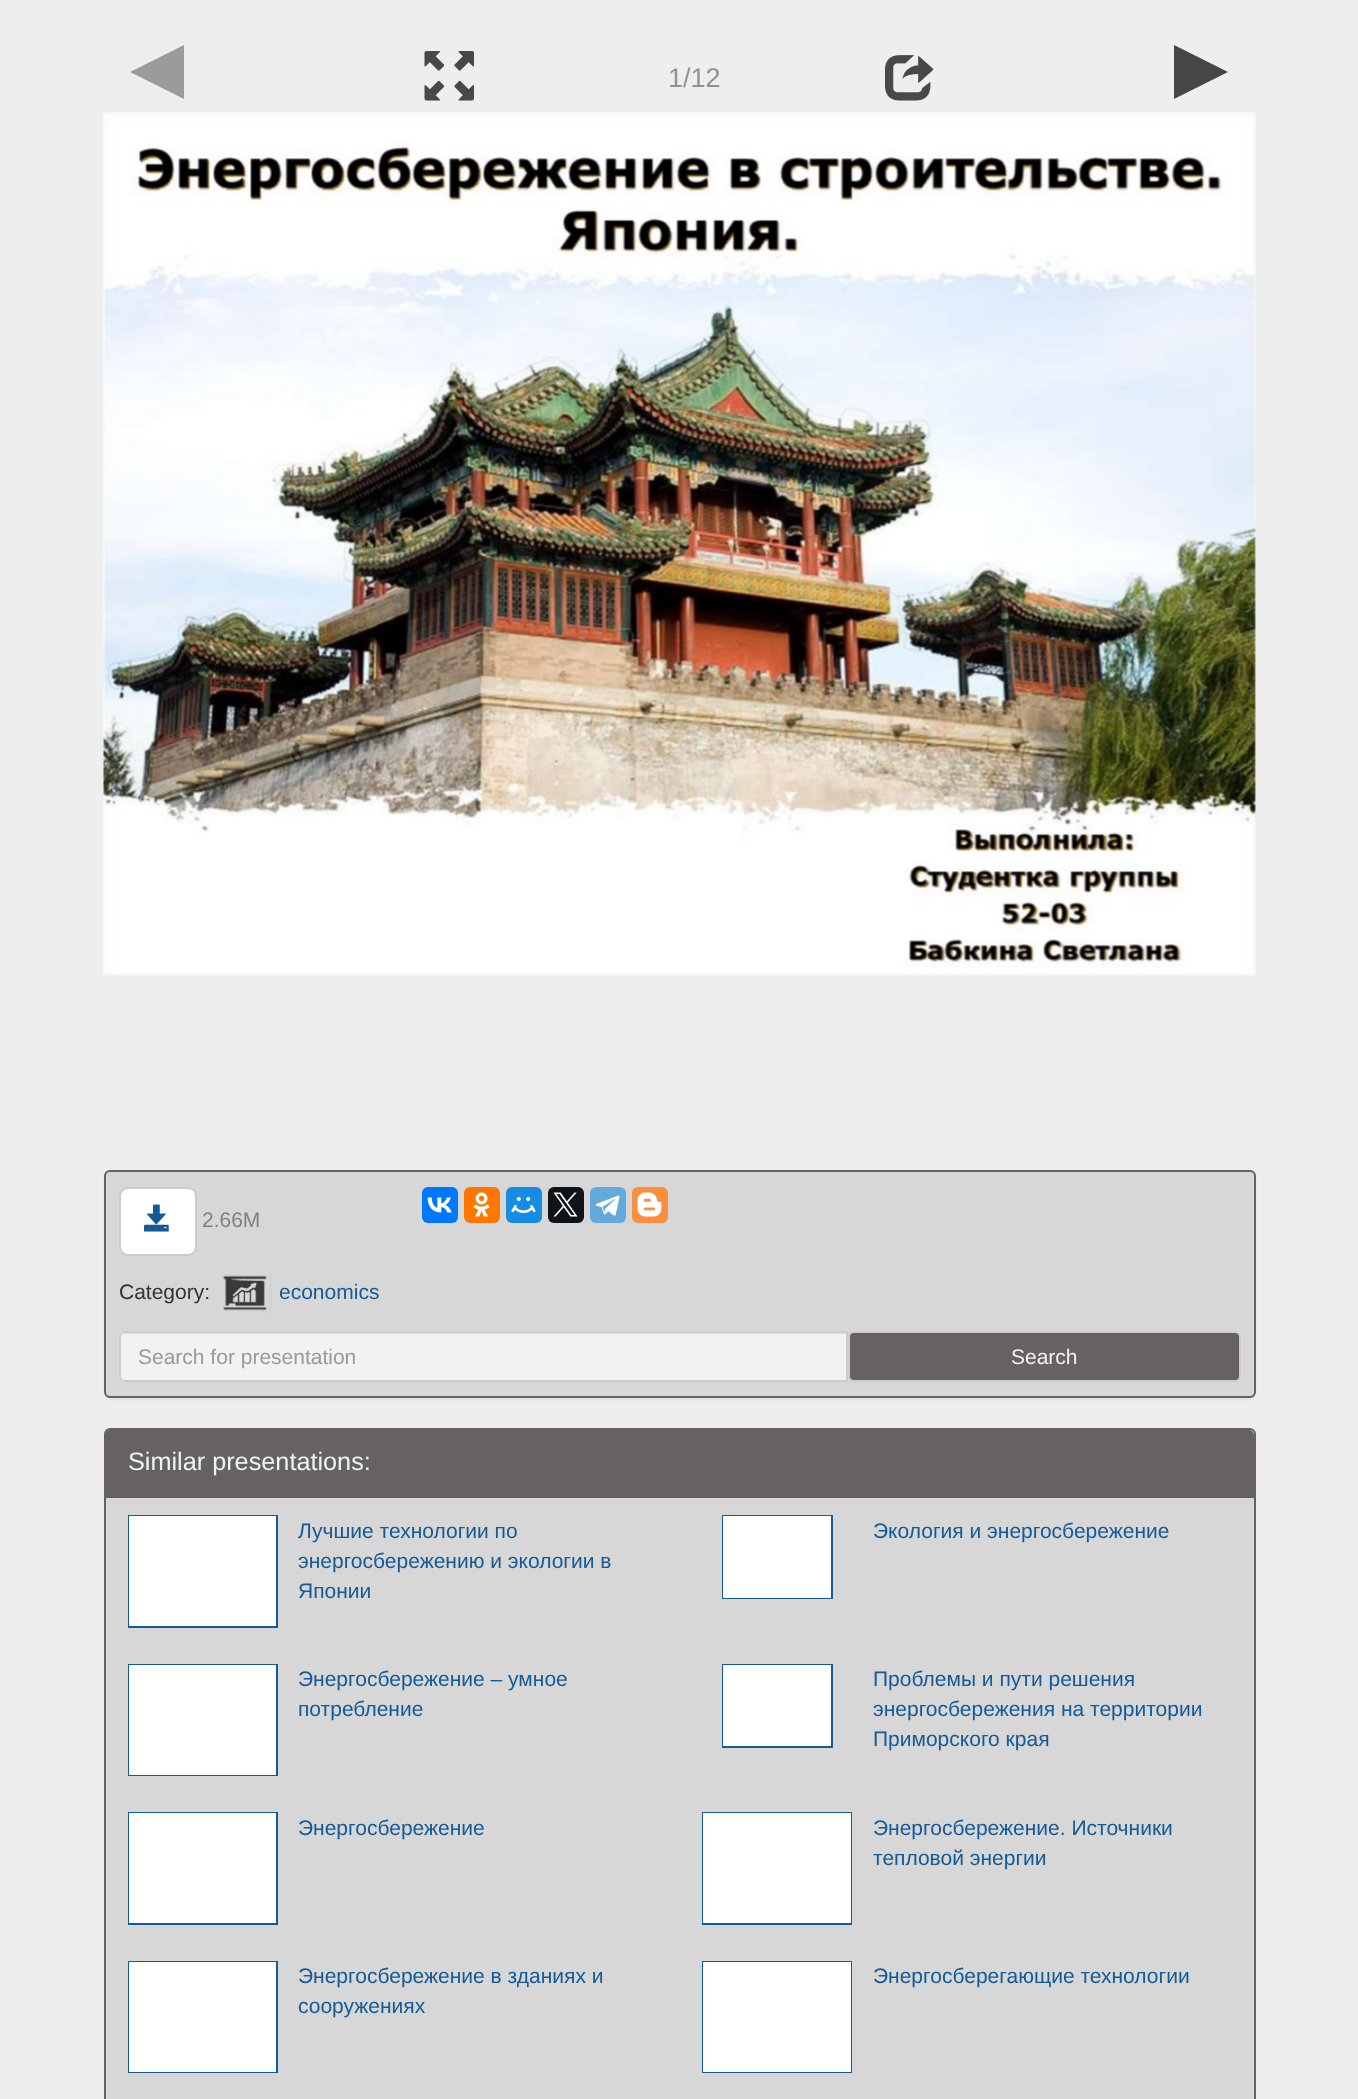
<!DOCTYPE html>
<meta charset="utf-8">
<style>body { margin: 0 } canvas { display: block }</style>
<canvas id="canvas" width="1358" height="2099"></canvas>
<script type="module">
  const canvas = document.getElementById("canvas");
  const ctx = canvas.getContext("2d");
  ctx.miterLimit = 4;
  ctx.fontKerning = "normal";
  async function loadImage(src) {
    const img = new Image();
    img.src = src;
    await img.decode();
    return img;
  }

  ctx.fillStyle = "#eeeeee";
  ctx.fillRect(0, 0, 1358, 2099);
  ctx.fillStyle = "#9b9b9b";
  ctx.beginPath();
  ctx.moveTo(184, 45);
  ctx.lineTo(184, 99);
  ctx.lineTo(130, 72);
  ctx.closePath();
  ctx.fill();
  ctx.drawImage(await loadImage("img1.png"), 424, 51, 50, 50);
  ctx.drawImage(await loadImage("img2.png"), 885, 55, 49, 46);
  ctx.fillStyle = "#474747";
  ctx.beginPath();
  ctx.moveTo(1174, 99);
  ctx.lineTo(1174, 45);
  ctx.lineTo(1228, 72);
  ctx.closePath();
  ctx.fill();
  ctx.font = "27px Liberation Sans";
  ctx.fillStyle = "#919191";
  ctx.fillText("1/12", 668, 87);
  ctx.drawImage(await loadImage("img3.png"), 103, 112, 1153, 864);
  ctx.fillStyle = "rgba(0, 0, 0, 0.05)";
  ctx.filter = "blur(1px)";
  ctx.beginPath();
  ctx.roundRect(104, 1172, 1152, 228, 6);
  ctx.fill();
  ctx.filter = "none";
  ctx.fillStyle = "#d7d7d7";
  ctx.beginPath();
  ctx.roundRect(105, 1171, 1150, 226, 5);
  ctx.fill();
  ctx.strokeStyle = "#676262";
  ctx.lineWidth = 2;
  ctx.stroke();
  ctx.fillStyle = "#ffffff";
  ctx.beginPath();
  ctx.roundRect(120, 1188, 76, 67, 8);
  ctx.fill();
  ctx.strokeStyle = "#cccccc";
  ctx.stroke();
  ctx.drawImage(await loadImage("img4.png"), 144, 1204, 25, 28);
  ctx.font = "21px Liberation Sans";
  ctx.fillStyle = "#808080";
  ctx.fillText("2.66M", 202, 1227);
  ctx.fillStyle = "#0077ff";
  ctx.beginPath();
  ctx.roundRect(422, 1187, 36, 36, 6);
  ctx.fill();
  ctx.drawImage(await loadImage("img5.png"), 427, 1197, 25, 16);
  ctx.fillStyle = "#ff7700";
  ctx.beginPath();
  ctx.roundRect(464, 1187, 36, 36, 6);
  ctx.fill();
  ctx.drawImage(await loadImage("img6.png"), 473, 1192, 17, 25);
  ctx.fillStyle = "#168de2";
  ctx.beginPath();
  ctx.roundRect(506, 1187, 36, 36, 6);
  ctx.fill();
  ctx.drawImage(await loadImage("img7.png"), 511, 1197, 25, 16);
  ctx.fillStyle = "#0f1419";
  ctx.beginPath();
  ctx.roundRect(548, 1187, 36, 36, 6);
  ctx.fill();
  ctx.drawImage(await loadImage("img8.png"), 553, 1192, 25, 25);
  ctx.fillStyle = "#64a9dc";
  ctx.beginPath();
  ctx.roundRect(590, 1187, 36, 36, 6);
  ctx.fill();
  ctx.drawImage(await loadImage("img9.png"), 595, 1195, 25, 21);
  ctx.fillStyle = "#fb8f3d";
  ctx.beginPath();
  ctx.roundRect(632, 1187, 36, 36, 6);
  ctx.fill();
  ctx.drawImage(await loadImage("img10.png"), 637, 1192, 25, 25);
  ctx.fillStyle = "#333333";
  ctx.fillText("Category:", 119, 1299);
  ctx.drawImage(await loadImage("img11.png"), 223, 1271, 49, 44);
  ctx.fillStyle = "#135a97";
  ctx.fillText("economics", 279, 1299);
  ctx.fillStyle = "#f2f2f2";
  ctx.beginPath();
  ctx.roundRect(119, 1331, 729, 51, [6, 0, 0, 6]);
  ctx.fill();
  ctx.fillStyle = "#e0e0e0";
  ctx.beginPath();
  ctx.moveTo(124, 1334);
  ctx.lineTo(846, 1334);
  ctx.lineTo(846, 1332);
  ctx.lineTo(125, 1332);
  ctx.bezierCurveTo(122, 1332, 120, 1335, 120, 1338);
  ctx.bezierCurveTo(120, 1336, 122, 1334, 124, 1334);
  ctx.closePath();
  ctx.fill();
  ctx.beginPath();
  ctx.roundRect(120, 1332, 727, 49, [5, 0, 0, 5]);
  ctx.stroke();
  ctx.fillStyle = "#999999";
  ctx.fillText("Search for presentation", 138, 1364);
  ctx.fillStyle = "#676262";
  ctx.beginPath();
  ctx.roundRect(849, 1332, 391, 49, 5);
  ctx.fill();
  ctx.stroke();
  ctx.fillStyle = "#f2f2f2";
  ctx.fillText("Search", 1011, 1364);
  ctx.fillStyle = "#d7d7d7";
  ctx.beginPath();
  ctx.roundRect(105, 1429, 1150, 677, 5);
  ctx.fill();
  ctx.strokeStyle = "#676262";
  ctx.stroke();
  ctx.fillStyle = "#676262";
  ctx.beginPath();
  ctx.roundRect(105, 1430, 1149, 67, [5, 5, 0, 0]);
  ctx.fill();
  ctx.fillRect(105, 1497, 1149, 1);
  ctx.font = "25.25px Liberation Sans";
  ctx.fillStyle = "#f2f2f2";
  ctx.fillText("Similar presentations:", 128, 1470);
  ctx.strokeStyle = "#135a97";
  ctx.strokeRect(129, 1516, 148, 111);
  ctx.fillStyle = "#ffffff";
  ctx.fillRect(129, 1516, 147, 110);
  ctx.font = "21px Liberation Sans";
  ctx.fillStyle = "#135a97";
  ctx.fillText("Лучшие технологии по", 298, 1538);
  ctx.fillText("энергосбережению и экологии в", 298, 1568);
  ctx.fillText("Японии", 298, 1598);
  ctx.strokeRect(723, 1516, 109, 82);
  ctx.fillStyle = "#ffffff";
  ctx.fillRect(723, 1516, 108, 82);
  ctx.fillStyle = "#135a97";
  ctx.fillText("Экология и энергосбережение", 873, 1538);
  ctx.strokeRect(129, 1665, 148, 110);
  ctx.fillStyle = "#ffffff";
  ctx.fillRect(129, 1665, 147, 110);
  ctx.fillStyle = "#135a97";
  ctx.fillText("Энергосбережение – умное", 298, 1686);
  ctx.fillText("потребление", 298, 1716);
  ctx.strokeRect(723, 1665, 109, 82);
  ctx.fillStyle = "#ffffff";
  ctx.fillRect(723, 1665, 108, 81);
  ctx.fillStyle = "#135a97";
  ctx.fillText("Проблемы и пути решения", 873, 1686);
  ctx.fillText("энергосбережения на территории", 873, 1716);
  ctx.fillText("Приморского края", 873, 1746);
  ctx.strokeRect(129, 1813, 148, 111);
  ctx.fillStyle = "#ffffff";
  ctx.fillRect(129, 1813, 147, 110);
  ctx.fillStyle = "#135a97";
  ctx.fillText("Энергосбережение", 298, 1835);
  ctx.strokeRect(703, 1813, 148, 111);
  ctx.fillStyle = "#ffffff";
  ctx.fillRect(703, 1813, 148, 110);
  ctx.fillStyle = "#135a97";
  ctx.fillText("Энергосбережение. Источники", 873, 1835);
  ctx.fillText("тепловой энергии", 873, 1865);
  ctx.strokeRect(129, 1962, 148, 110);
  ctx.fillStyle = "#ffffff";
  ctx.fillRect(129, 1962, 147, 110);
  ctx.fillStyle = "#135a97";
  ctx.fillText("Энергосбережение в зданиях и", 298, 1983);
  ctx.fillText("сооружениях", 298, 2013);
  ctx.strokeRect(703, 1962, 148, 110);
  ctx.fillStyle = "#ffffff";
  ctx.fillRect(703, 1962, 148, 110);
  ctx.fillStyle = "#135a97";
  ctx.fillText("Энергосберегающие технологии", 873, 1983);
</script>
